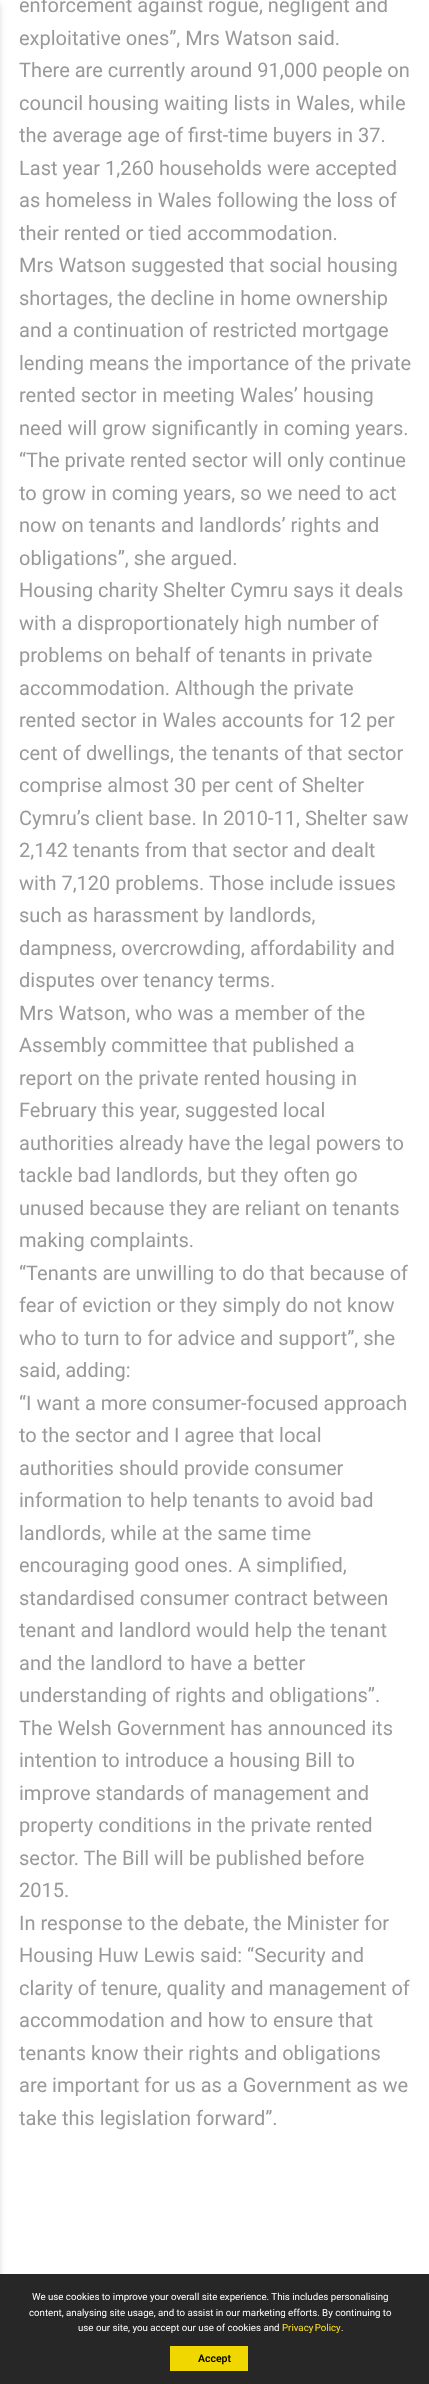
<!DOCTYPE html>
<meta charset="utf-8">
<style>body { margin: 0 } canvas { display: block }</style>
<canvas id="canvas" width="429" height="2384"></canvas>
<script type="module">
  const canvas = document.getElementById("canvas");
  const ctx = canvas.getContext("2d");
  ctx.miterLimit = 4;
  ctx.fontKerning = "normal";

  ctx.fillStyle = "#ffffff";
  ctx.fillRect(0, 0, 429, 2384);
  ctx.fillStyle = "rgba(0, 0, 0, 0.2)";
  ctx.filter = "blur(3px)";
  ctx.beginPath();
  ctx.rect(-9, 4, 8, 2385);
  ctx.fill();
  ctx.filter = "none";
  ctx.font = "20px Roboto";
  ctx.fillStyle = "#999999";
  ctx.fillText("enforcement against rogue, negligent and", 19, 12);
  ctx.fillText("exploitative ones”, Mrs Watson said.", 19, 45);
  ctx.fillText("There are currently around 91,000 people on", 19, 77);
  ctx.fillText("council housing waiting lists in Wales, while", 19, 110);
  ctx.fillText("the average age of first-time buyers in 37.", 19, 142);
  ctx.fillText("Last year 1,260 households were accepted", 19, 175);
  ctx.fillText("as homeless in Wales following the loss of", 19, 207);
  ctx.fillText("their rented or tied accommodation.", 19, 240);
  ctx.fillText("Mrs Watson suggested that social housing", 19, 272);
  ctx.fillText("shortages, the decline in home ownership", 19, 305);
  ctx.fillText("and a continuation of restricted mortgage", 19, 337);
  ctx.fillText("lending means the importance of the private", 19, 370);
  ctx.fillText("rented sector in meeting Wales’ housing", 19, 402);
  ctx.fillText("need will grow significantly in coming years.", 19, 435);
  ctx.fillText("“The private rented sector will only continue", 19, 467);
  ctx.fillText("to grow in coming years, so we need to act", 19, 500);
  ctx.fillText("now on tenants and landlords’ rights and", 19, 532);
  ctx.fillText("obligations”, she argued.", 19, 565);
  ctx.fillText("Housing charity Shelter Cymru says it deals", 19, 597);
  ctx.fillText("with a disproportionately high number of", 19, 630);
  ctx.fillText("problems on behalf of tenants in private", 19, 662);
  ctx.fillText("accommodation. Although the private", 19, 695);
  ctx.fillText("rented sector in Wales accounts for 12 per", 19, 727);
  ctx.fillText("cent of dwellings, the tenants of that sector", 19, 760);
  ctx.fillText("comprise almost 30 per cent of Shelter", 19, 792);
  ctx.fillText("Cymru’s client base. In 2010-11, Shelter saw", 19, 825);
  ctx.fillText("2,142 tenants from that sector and dealt", 19, 857);
  ctx.fillText("with 7,120 problems. Those include issues", 19, 890);
  ctx.fillText("such as harassment by landlords,", 19, 922);
  ctx.fillText("dampness, overcrowding, affordability and", 19, 955);
  ctx.fillText("disputes over tenancy terms.", 19, 987);
  ctx.fillText("Mrs Watson, who was a member of the", 19, 1020);
  ctx.fillText("Assembly committee that published a", 19, 1052);
  ctx.fillText("report on the private rented housing in", 19, 1085);
  ctx.fillText("February this year, suggested local", 19, 1117);
  ctx.fillText("authorities already have the legal powers to", 19, 1150);
  ctx.fillText("tackle bad landlords, but they often go", 19, 1182);
  ctx.fillText("unused because they are reliant on tenants", 19, 1215);
  ctx.fillText("making complaints.", 19, 1247);
  ctx.fillText("“Tenants are unwilling to do that because of", 19, 1280);
  ctx.fillText("fear of eviction or they simply do not know", 19, 1312);
  ctx.fillText("who to turn to for advice and support”, she", 19, 1345);
  ctx.fillText("said, adding:", 19, 1377);
  ctx.fillText("“I want a more consumer-focused approach", 19, 1410);
  ctx.fillText("to the sector and I agree that local", 19, 1442);
  ctx.fillText("authorities should provide consumer", 19, 1475);
  ctx.fillText("information to help tenants to avoid bad", 19, 1507);
  ctx.fillText("landlords, while at the same time", 19, 1540);
  ctx.fillText("encouraging good ones. A simplified,", 19, 1572);
  ctx.fillText("standardised consumer contract between", 19, 1605);
  ctx.fillText("tenant and landlord would help the tenant", 19, 1637);
  ctx.fillText("and the landlord to have a better", 19, 1670);
  ctx.fillText("understanding of rights and obligations”.", 19, 1702);
  ctx.fillText("The Welsh Government has announced its", 19, 1735);
  ctx.fillText("intention to introduce a housing Bill to", 19, 1767);
  ctx.fillText("improve standards of management and", 19, 1800);
  ctx.fillText("property conditions in the private rented", 19, 1832);
  ctx.fillText("sector. The Bill will be published before", 19, 1865);
  ctx.fillText("2015.", 19, 1897);
  ctx.fillText("In response to the debate, the Minister for", 19, 1930);
  ctx.fillText("Housing Huw Lewis said: “Security and", 19, 1962);
  ctx.fillText("clarity of tenure, quality and management of", 19, 1995);
  ctx.fillText("accommodation and how to ensure that", 19, 2027);
  ctx.fillText("tenants know their rights and obligations", 19, 2060);
  ctx.fillText("are important for us as a Government as we", 19, 2092);
  ctx.fillText("take this legislation forward”.", 19, 2125);
  ctx.fillStyle = "#f2f2f2";
  ctx.fillRect(19, 2278, 392, 106);
  ctx.fillStyle = "rgba(35, 35, 35, 0.98)";
  ctx.fillRect(0, 2274, 429, 110);
  ctx.font = "9.7px Roboto";
  ctx.fillStyle = "#ffffff";
  ctx.fillText("We use cookies to improve your overall site experience. This includes personalising", 32, 2300);
  ctx.fillText("content, analysing site usage, and to assist in our marketing efforts. By continuing to", 29, 2316);
  ctx.fillText("use our site, you accept our use of cookies and", 78, 2331);
  ctx.wordSpacing = "-1px";
  ctx.fillStyle = "#fde428";
  ctx.fillText("Privacy Policy", 282, 2331);
  ctx.wordSpacing = "0px";
  ctx.fillStyle = "#ffffff";
  ctx.fillText(".", 341, 2331);
  ctx.fillStyle = "#f0d700";
  ctx.fillRect(170, 2346, 78, 25);
  ctx.font = "600 10.5px Roboto";
  ctx.fillStyle = "#000000";
  ctx.fillText("Accept", 198, 2362);
</script>
